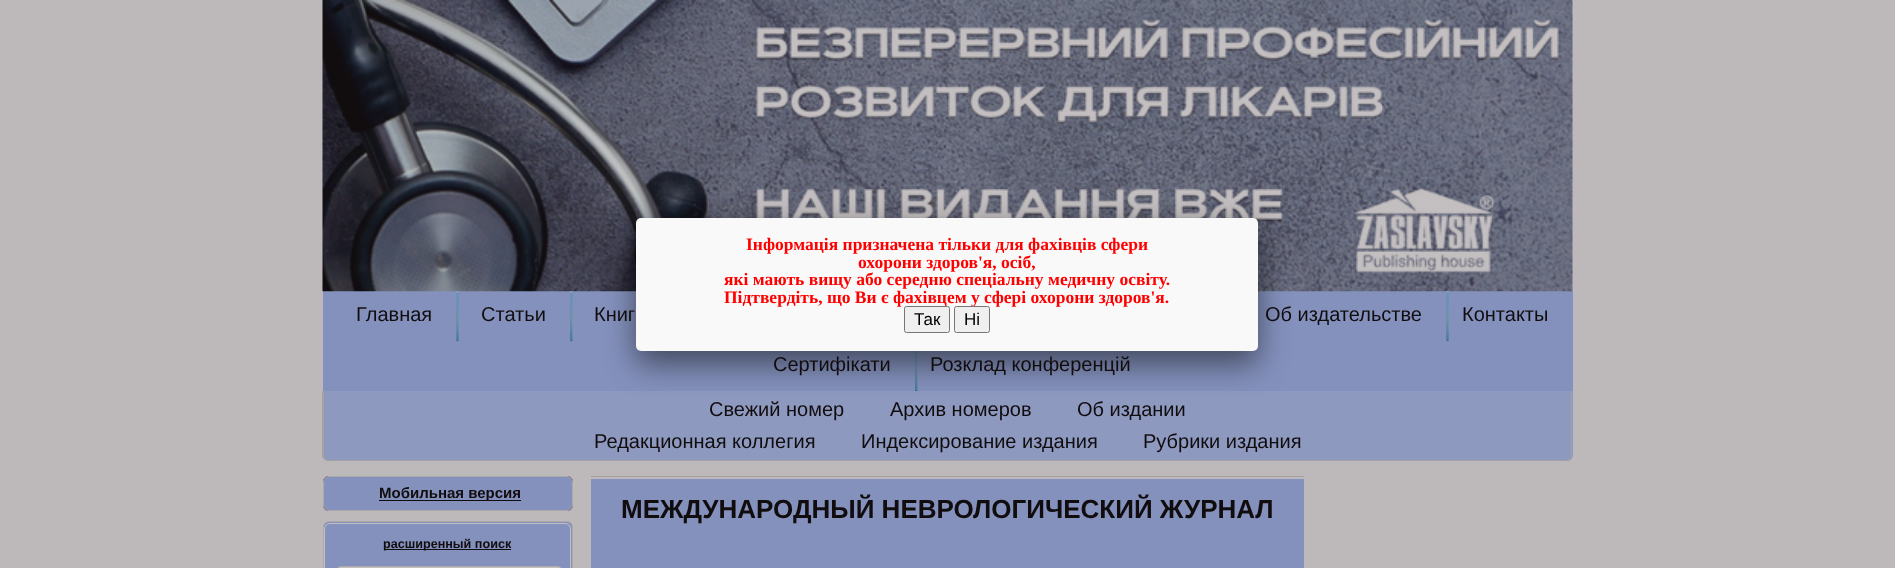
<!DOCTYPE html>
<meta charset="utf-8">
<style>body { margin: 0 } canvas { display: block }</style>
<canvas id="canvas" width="1895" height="568"></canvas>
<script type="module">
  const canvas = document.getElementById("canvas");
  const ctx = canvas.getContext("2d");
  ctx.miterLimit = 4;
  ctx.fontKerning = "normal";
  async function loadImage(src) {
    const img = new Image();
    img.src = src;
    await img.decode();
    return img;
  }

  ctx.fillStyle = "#bdb8b9";
  ctx.fillRect(0, 0, 1895, 568);
  ctx.fillStyle = "#8491bd";
  ctx.fillRect(323, 291, 1250, 100);
  ctx.drawImage(await loadImage("img1.png"), 322, 0, 1251, 292);
  ctx.drawImage(await loadImage("img5.png"), 915, 351, 3, 40);
  ctx.fillStyle = "#8e99c0";
  ctx.beginPath();
  ctx.roundRect(323, 391, 1250, 70, [0, 0, 6, 6]);
  ctx.fill();
  ctx.fillStyle = "#a5a0a1";
  ctx.beginPath();
  ctx.moveTo(322, 391);
  ctx.lineTo(1572, 391);
  ctx.lineTo(1572, 455);
  ctx.bezierCurveTo(1572, 458, 1570, 461, 1566, 461);
  ctx.lineTo(329, 461);
  ctx.bezierCurveTo(325, 461, 322, 458, 322, 455);
  ctx.closePath();
  ctx.moveTo(324, 391);
  ctx.lineTo(1571, 391);
  ctx.lineTo(1571, 455);
  ctx.bezierCurveTo(1571, 458, 1569, 460, 1566, 460);
  ctx.lineTo(329, 460);
  ctx.bezierCurveTo(326, 460, 324, 458, 324, 455);
  ctx.closePath();
  ctx.fill("evenodd");
  ctx.fillStyle = "rgba(0, 0, 0, 0.5)";
  ctx.filter = "blur(15.5px)";
  ctx.beginPath();
  ctx.roundRect(636, 230, 622, 134, 5);
  ctx.fill();
  ctx.filter = "none";
  ctx.fillStyle = "#f9f9f9";
  ctx.beginPath();
  ctx.roundRect(636, 218, 622, 133, 5);
  ctx.fill();
  ctx.font = "bold 17.5px Liberation Serif";
  ctx.fillStyle = "#ff0000";
  ctx.fillText("Інформація призначена тільки для фахівців сфери", 746, 250);
  ctx.fillText("охорони здоров'я, осіб,", 858, 268);
  ctx.fillText("які мають вищу або середню спеціальну медичну освіту.", 724, 285);
  ctx.fillText("Підтвердіть, що Ви є фахівцем у сфері охорони здоров'я.", 724, 303);
  ctx.fillStyle = "#efefef";
  ctx.beginPath();
  ctx.roundRect(904.5, 306.5, 45, 26, 2);
  ctx.fill();
  ctx.strokeStyle = "#767676";
  ctx.stroke();
  ctx.font = "17px Liberation Sans";
  ctx.fillStyle = "#000000";
  ctx.fillText("Так", 914, 325);
  ctx.fillStyle = "#efefef";
  ctx.beginPath();
  ctx.roundRect(954.5, 306.5, 35, 26, 2);
  ctx.fill();
  ctx.stroke();
  ctx.fillStyle = "#000000";
  ctx.fillText("Ні", 964, 325);
  ctx.font = "20px Liberation Sans";
  ctx.fillStyle = "#110d0e";
  ctx.fillText("Главная", 356, 321);
  ctx.drawImage(await loadImage("img2.png"), 456, 291, 3, 51);
  ctx.fillText("Статьи", 481, 321);
  ctx.drawImage(await loadImage("img3.png"), 570, 291, 3, 51);
  ctx.fillText("Книг", 594, 321);
  ctx.fillText("Об издательстве", 1265, 321);
  ctx.drawImage(await loadImage("img4.png"), 1446, 291, 3, 51);
  ctx.fillText("Контакты", 1462, 321);
  ctx.fillText("Сертифікати", 773, 371);
  ctx.fillText("Розклад конференцій", 930, 371);
  ctx.fillText("Свежий номер", 709, 416);
  ctx.fillText("Архив номеров", 890, 416);
  ctx.fillText("Об издании", 1077, 416);
  ctx.fillText("Редакционная коллегия", 594, 448);
  ctx.fillText("Индексирование издания", 861, 448);
  ctx.fillText("Рубрики издания", 1143, 448);
  ctx.filter = "blur(0.5px)";
  ctx.beginPath();
  ctx.roundRect(323, 476, 250, 35, 6);
  ctx.fill();
  ctx.filter = "none";
  ctx.fillStyle = "#8491bd";
  ctx.beginPath();
  ctx.roundRect(323.5, 476.5, 249, 34, 5.5);
  ctx.fill();
  ctx.strokeStyle = "#ada8a9";
  ctx.stroke();
  ctx.fillStyle = "#110d0e";
  ctx.fillRect(379, 500, 142, 1);
  ctx.font = "bold 15px Liberation Sans";
  ctx.fillText("Мобильная версия", 379, 498);
  ctx.fillStyle = "#8491bd";
  ctx.beginPath();
  ctx.roundRect(323.5, 521.5, 249, 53, 5.5);
  ctx.fill();
  ctx.stroke();
  ctx.beginPath();
  ctx.roundRect(324.5, 523.5, 246, 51, 5.5);
  ctx.strokeStyle = "#c4bfc0";
  ctx.stroke();
  ctx.fillStyle = "#110d0e";
  ctx.fillRect(384, 549, 127, 1);
  ctx.font = "bold 12.6px Liberation Sans";
  ctx.fillText("расширенный поиск", 383, 548);
  ctx.fillStyle = "#c4bfc0";
  ctx.beginPath();
  ctx.roundRect(335.5, 566.5, 228, 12, 9.5);
  ctx.fill();
  ctx.strokeStyle = "#aea9aa";
  ctx.stroke();
  ctx.fillStyle = "#a7a2a3";
  ctx.fillRect(591, 476, 713, 1);
  ctx.fillStyle = "#8491bd";
  ctx.fillRect(591, 479, 713, 89);
  ctx.font = "bold 26px Liberation Sans";
  ctx.fillStyle = "#110d0e";
  ctx.fillText("МЕЖДУНАРОДНЫЙ НЕВРОЛОГИЧЕСКИЙ ЖУРНАЛ", 621, 518);
</script>
